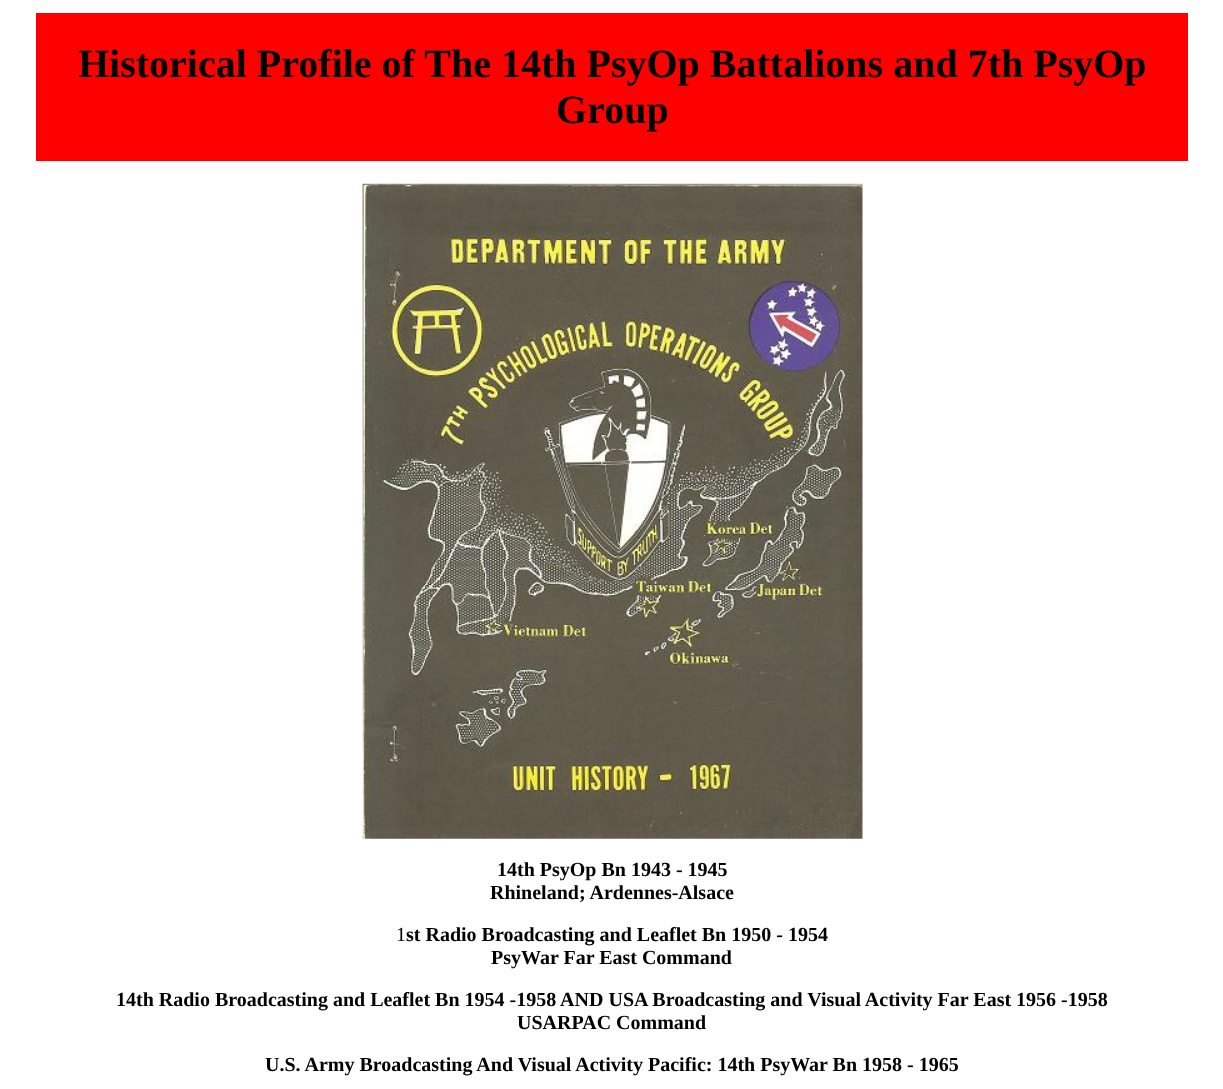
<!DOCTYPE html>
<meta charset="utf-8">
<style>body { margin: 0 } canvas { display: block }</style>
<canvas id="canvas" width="1223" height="1089"></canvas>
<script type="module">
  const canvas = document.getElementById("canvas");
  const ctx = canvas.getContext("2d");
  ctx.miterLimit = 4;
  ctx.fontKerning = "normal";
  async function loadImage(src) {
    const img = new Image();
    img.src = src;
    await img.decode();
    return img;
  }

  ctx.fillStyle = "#ffffff";
  ctx.fillRect(0, 0, 1223, 1089);
  ctx.fillStyle = "#ff0000";
  ctx.fillRect(36, 13, 1152, 148);
  ctx.font = "bold 40px Liberation Serif";
  ctx.fillStyle = "#000000";
  ctx.fillText("Historical Profile of The 14th PsyOp Battalions and 7th PsyOp", 78, 77);
  ctx.fillText("Group", 556, 123);
  ctx.drawImage(await loadImage("img1.png"), 362, 183, 501, 656);
  ctx.font = "bold 20px Liberation Serif";
  ctx.fillText("14th PsyOp Bn 1943 - 1945", 497, 876);
  ctx.fillText("Rhineland; Ardennes-Alsace", 490, 899);
  ctx.font = "20px Liberation Serif";
  ctx.fillText("1", 396, 941);
  ctx.font = "bold 20px Liberation Serif";
  ctx.fillText("st Radio Broadcasting and Leaflet Bn 1950 - 1954", 406, 941);
  ctx.fillText("PsyWar Far East Command", 491, 964);
  ctx.fillText("14th Radio Broadcasting and Leaflet Bn 1954 -1958 AND USA Broadcasting and Visual Activity Far East 1956 -1958", 116, 1006);
  ctx.fillText("USARPAC Command", 517, 1029);
  ctx.fillText("U.S. Army Broadcasting And Visual Activity Pacific: 14th PsyWar Bn 1958 - 1965", 265, 1071);
</script>
